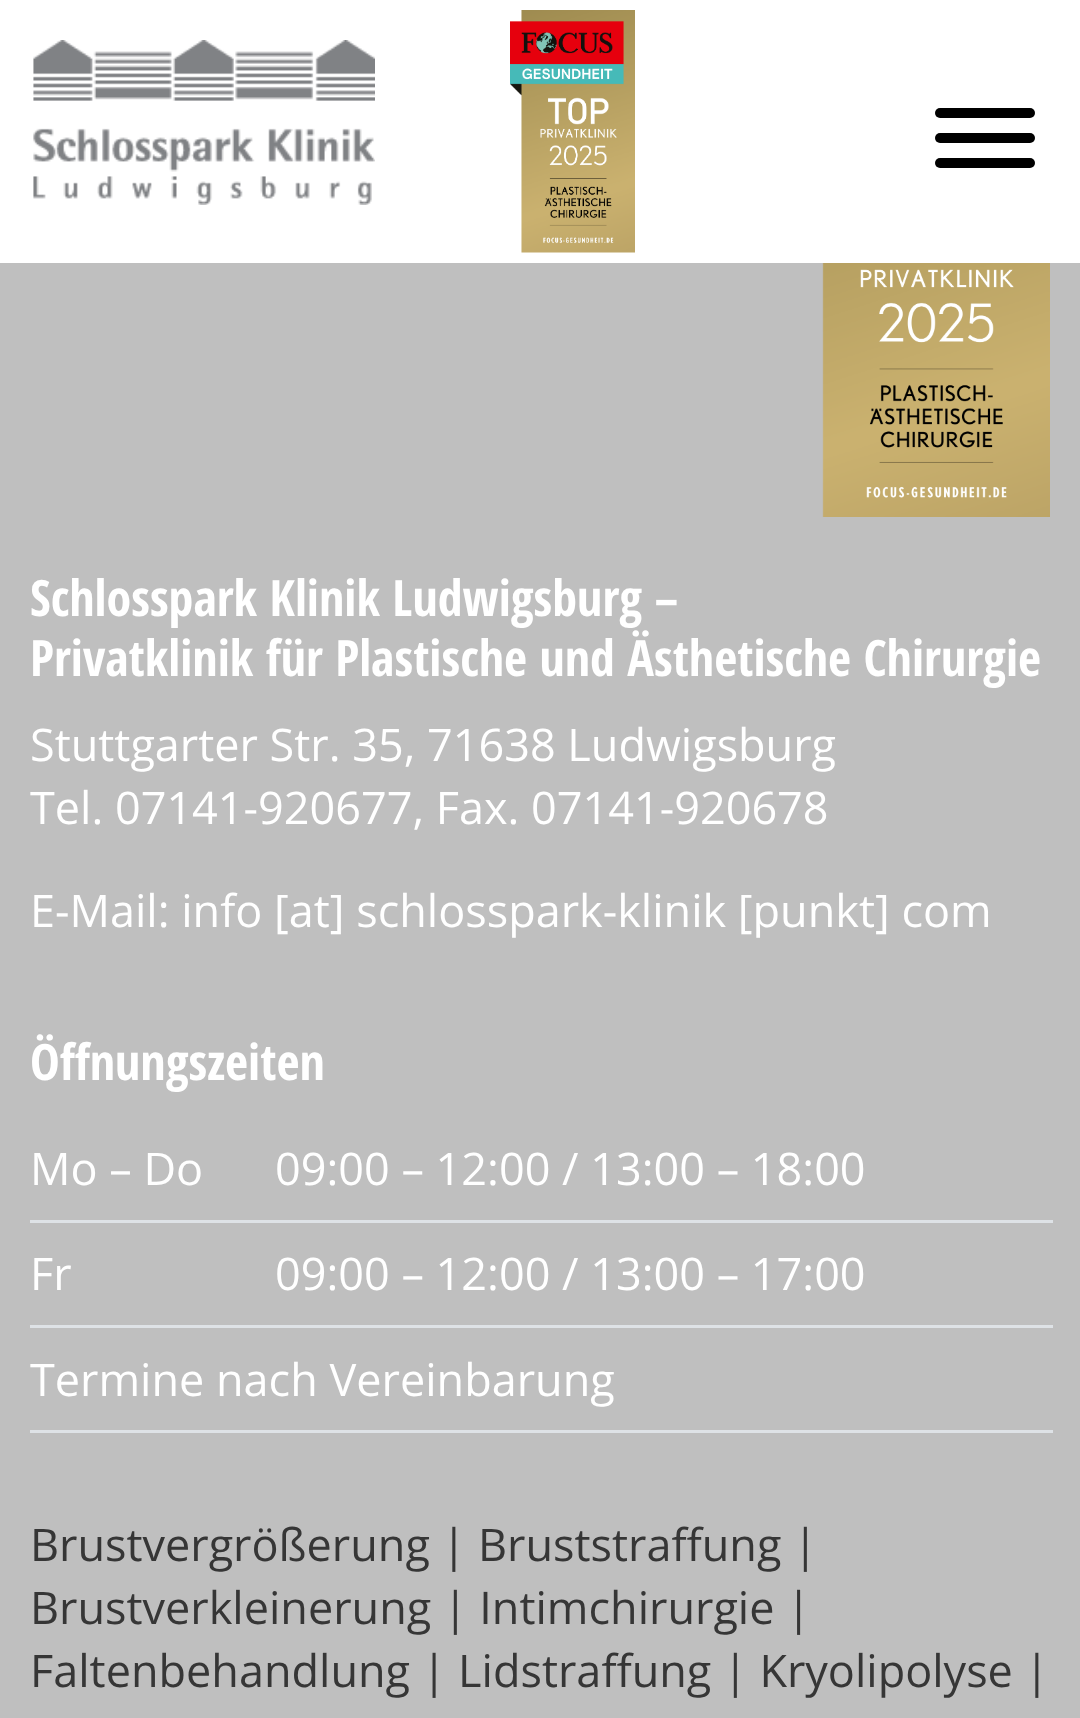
<!DOCTYPE html>
<meta charset="utf-8">
<style>body { margin: 0 } canvas { display: block }</style>
<canvas id="canvas" width="1080" height="1718"></canvas>
<script type="module">
  const canvas = document.getElementById("canvas");
  const ctx = canvas.getContext("2d");
  ctx.miterLimit = 4;
  ctx.fontKerning = "normal";
  async function loadImage(src) {
    const img = new Image();
    img.src = src;
    await img.decode();
    return img;
  }

  ctx.fillStyle = "#bfbfbf";
  ctx.fillRect(0, 0, 1080, 1718);
  ctx.fillStyle = "#ffffff";
  ctx.fillRect(0, 0, 1080, 263);
  ctx.drawImage(await loadImage("img1.png"), 33, 40, 342, 165);
  ctx.drawImage(await loadImage("img2.png"), 510, 10, 125, 243);
  ctx.fillStyle = "#000000";
  ctx.beginPath();
  ctx.roundRect(935, 108, 100, 10, 5);
  ctx.fill();
  ctx.beginPath();
  ctx.roundRect(935, 133, 100, 10, 5);
  ctx.fill();
  ctx.beginPath();
  ctx.roundRect(935, 158, 100, 10, 5);
  ctx.fill();
  ctx.drawImage(await loadImage("img3.png"), 822, 263, 228, 254);
  ctx.font = "bold 50px Open Sans Condensed";
  ctx.fillStyle = "#ffffff";
  ctx.fillText("Schlosspark Klinik Ludwigsburg –", 30, 616);
  ctx.fillText("Privatklinik für Plastische und Ästhetische Chirurgie", 30, 676);
  ctx.font = "45px Open Sans";
  ctx.fillText("Stuttgarter Str. 35, 71638 Ludwigsburg", 30, 761);
  ctx.fillText("Tel. 07141-920677, Fax. 07141-920678", 30, 824);
  ctx.fillText("E-Mail: info [at] schlosspark-klinik [punkt] com", 30, 927);
  ctx.font = "bold 50px Open Sans Condensed";
  ctx.fillText("Öffnungszeiten", 30, 1080);
  ctx.font = "45px Open Sans";
  ctx.fillText("Mo – Do", 30, 1185);
  ctx.fillStyle = "#dee2e6";
  ctx.fillRect(30, 1220, 1023, 3);
  ctx.fillStyle = "#ffffff";
  ctx.fillText("09:00 – 12:00 / 13:00 – 18:00", 275, 1185);
  ctx.fillText("Fr", 30, 1290);
  ctx.fillStyle = "#dee2e6";
  ctx.fillRect(30, 1325, 1023, 3);
  ctx.fillStyle = "#ffffff";
  ctx.fillText("09:00 – 12:00 / 13:00 – 17:00", 275, 1290);
  ctx.fillStyle = "#dee2e6";
  ctx.fillRect(30, 1430, 1023, 3);
  ctx.fillStyle = "#ffffff";
  ctx.fillText("Termine nach Vereinbarung", 30, 1396);
  ctx.fillStyle = "#363636";
  ctx.fillText("Brustvergrößerung | Bruststraffung |", 30, 1561);
  ctx.fillText("Brustverkleinerung | Intimchirurgie |", 30, 1624);
  ctx.fillText("Faltenbehandlung | Lidstraffung | Kryolipolyse |", 30, 1687);
</script>
